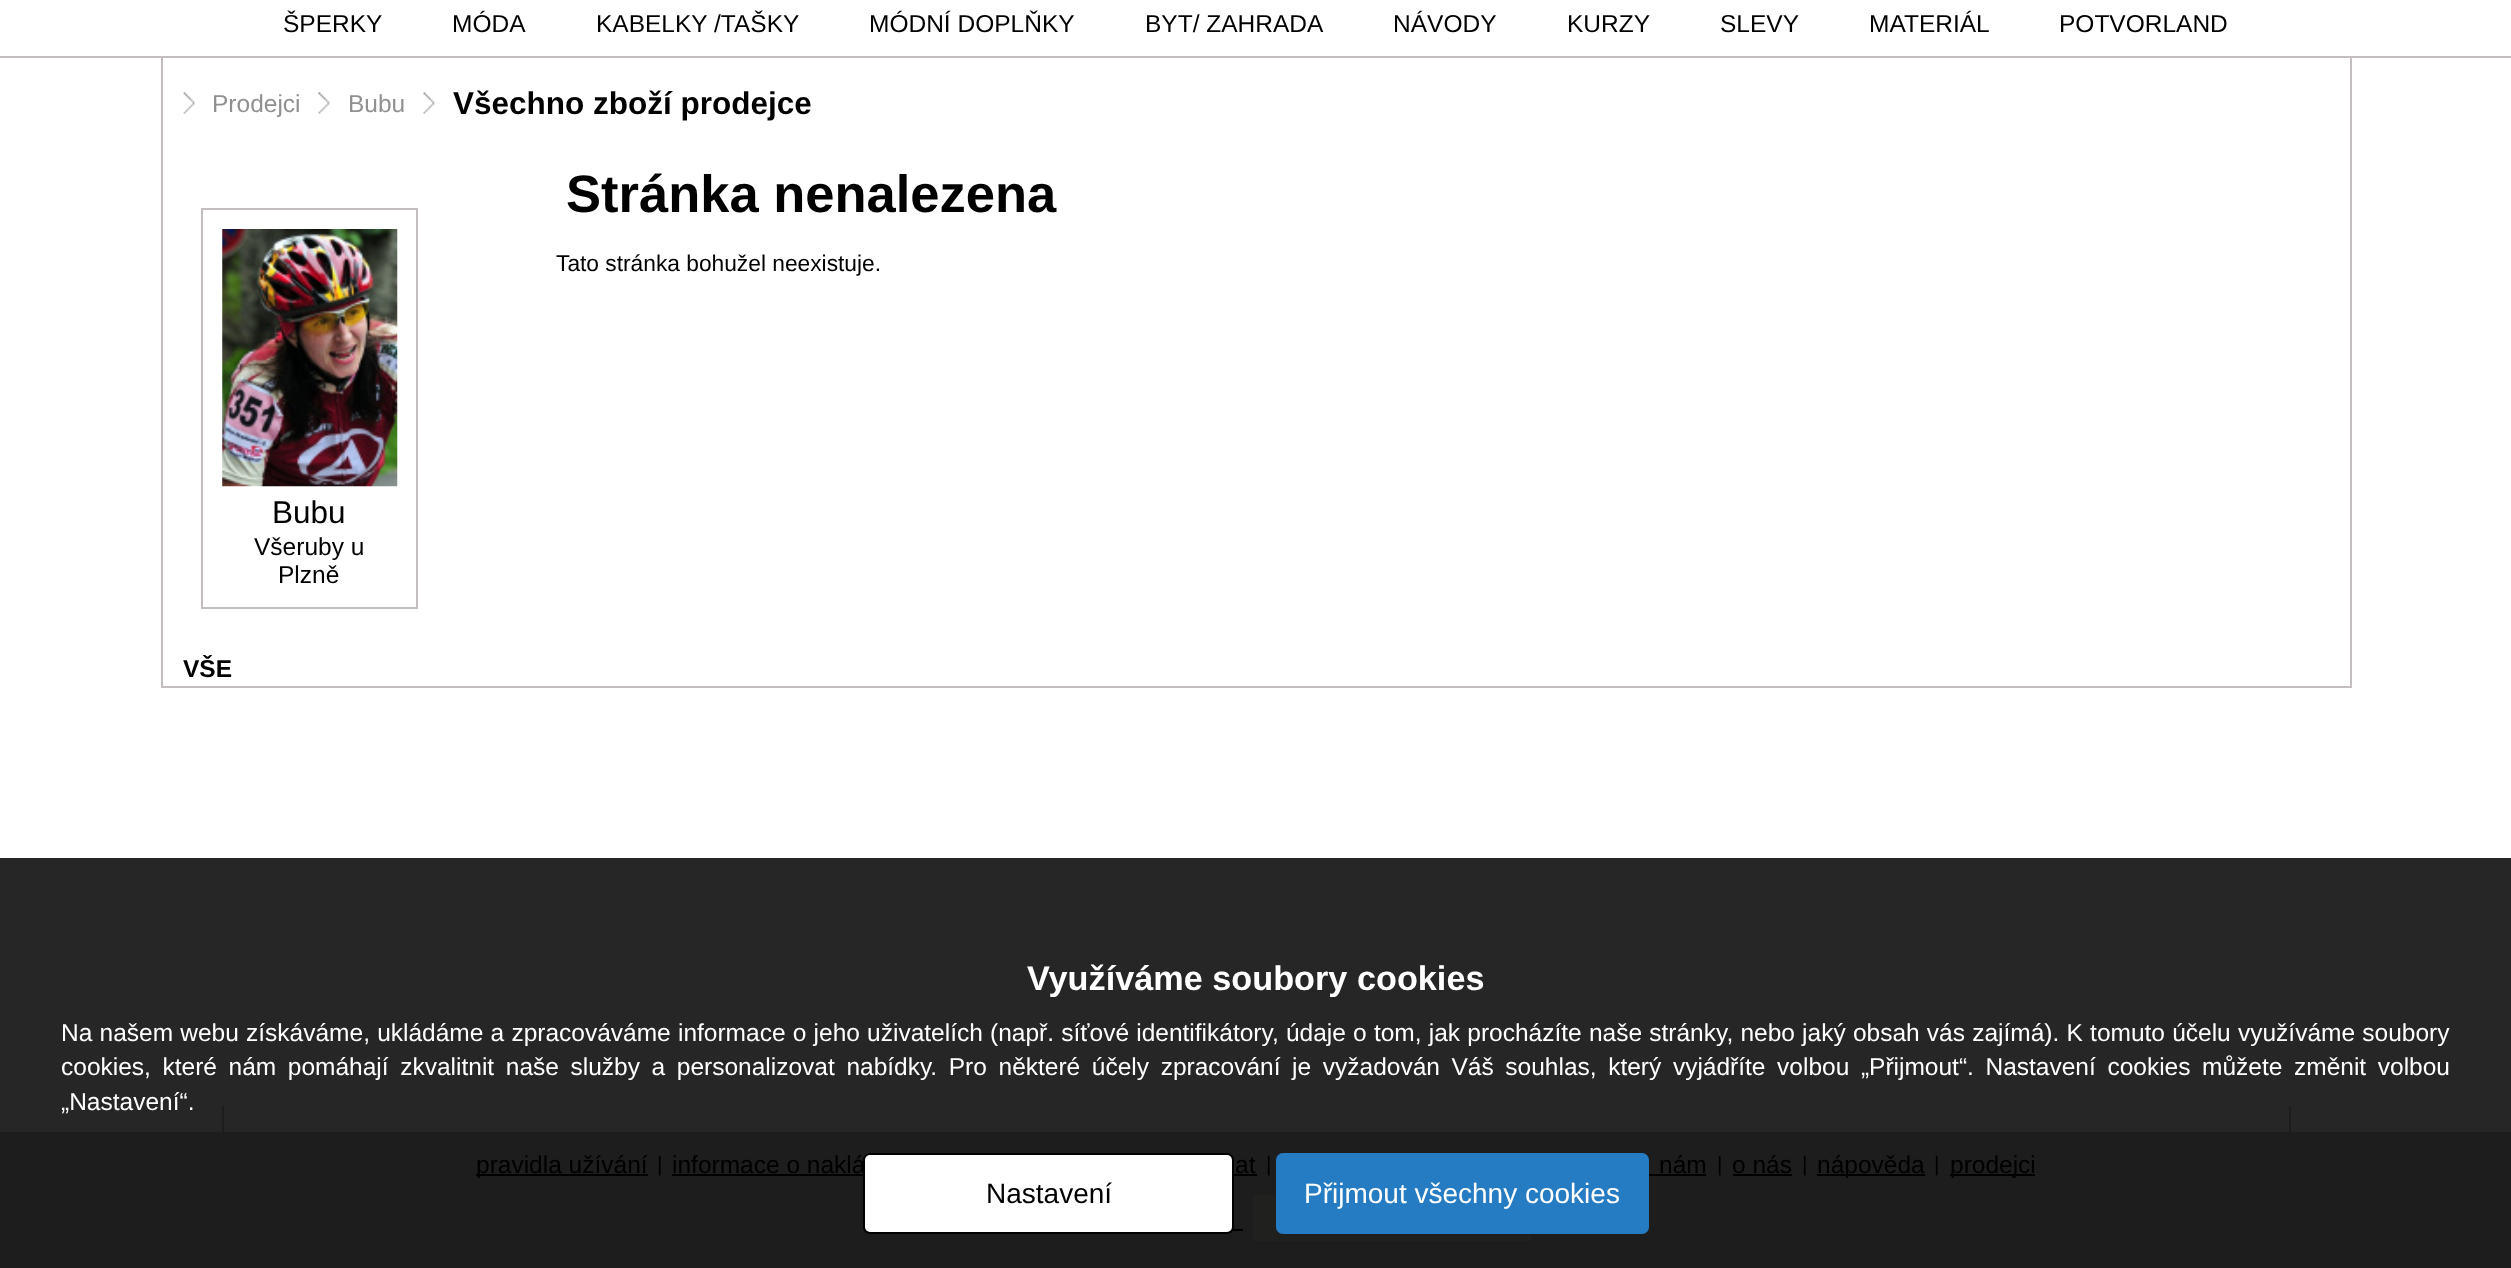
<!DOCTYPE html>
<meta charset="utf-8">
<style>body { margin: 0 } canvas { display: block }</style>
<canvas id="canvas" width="2511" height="1268"></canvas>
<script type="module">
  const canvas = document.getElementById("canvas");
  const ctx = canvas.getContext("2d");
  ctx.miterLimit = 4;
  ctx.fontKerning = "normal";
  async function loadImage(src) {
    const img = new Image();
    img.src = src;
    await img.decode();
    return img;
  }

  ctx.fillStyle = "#ffffff";
  ctx.fillRect(0, 0, 2511, 1268);
  ctx.fillStyle = "#262626";
  ctx.fillRect(0, 858, 2511, 274);
  ctx.fillStyle = "#c4bebe";
  ctx.fillRect(0, 56, 2511, 2);
  ctx.font = "24.5px Arimo";
  ctx.fillStyle = "#000000";
  ctx.fillText("ŠPERKY", 283, 32);
  ctx.fillText("MÓDA", 452, 32);
  ctx.fillText("KABELKY", 596, 32);
  ctx.fillText("/TAŠKY", 714, 32);
  ctx.fillText("MÓDNÍ DOPLŇKY", 869, 32);
  ctx.fillText("BYT/ ZAHRADA", 1145, 32);
  ctx.fillText("NÁVODY", 1393, 32);
  ctx.fillText("KURZY", 1567, 32);
  ctx.fillText("SLEVY", 1720, 32);
  ctx.fillText("MATERIÁL", 1869, 32);
  ctx.fillText("POTVORLAND", 2059, 32);
  ctx.strokeStyle = "#c4bebe";
  ctx.lineWidth = 2;
  ctx.strokeRect(162, 57, 2189, 630);
  ctx.drawImage(await loadImage("img1.png"), 183, 92, 12, 22);
  ctx.fillStyle = "#918f8f";
  ctx.fillText("Prodejci", 212, 112);
  ctx.drawImage(await loadImage("img2.png"), 318, 92, 12, 22);
  ctx.fillText("Bubu", 348, 112);
  ctx.drawImage(await loadImage("img3.png"), 423, 92, 12, 22);
  ctx.font = "bold 31.5px Arimo";
  ctx.fillStyle = "#000000";
  ctx.fillText("Všechno zboží prodejce", 453, 114);
  ctx.font = "bold 52.5px Arimo";
  ctx.fillText("Stránka nenalezena", 566, 212);
  ctx.font = "22.75px Arimo";
  ctx.fillText("Tato stránka bohužel neexistuje.", 556, 271);
  ctx.strokeRect(202, 209, 215, 399);
  ctx.drawImage(await loadImage("img4.png"), 222, 229, 176, 258);
  ctx.font = "31.5px Arimo";
  ctx.fillText("Bubu", 272, 523);
  ctx.font = "24.5px Arimo";
  ctx.fillText("Všeruby u", 254, 555);
  ctx.fillText("Plzně", 278, 583);
  ctx.font = "bold 24.5px Arimo";
  ctx.fillText("VŠE", 183, 677);
  ctx.font = "bold 34.25px Arimo";
  ctx.fillStyle = "#ffffff";
  ctx.fillText("Využíváme soubory cookies", 1027, 990);
  ctx.wordSpacing = "0.4px";
  ctx.font = "24.5px Arimo";
  ctx.fillText("Na našem webu získáváme, ukládáme a zpracováváme informace o jeho uživatelích (např. síťové identifikátory, údaje o tom, jak procházíte naše stránky, nebo jaký obsah vás zajímá). K tomuto účelu využíváme soubory", 61, 1041);
  ctx.wordSpacing = "4.8px";
  ctx.fillText("cookies, které nám pomáhají zkvalitnit naše služby a personalizovat nabídky. Pro některé účely zpracování je vyžadován Váš souhlas, který vyjádříte volbou „Přijmout“. Nastavení cookies můžete změnit volbou", 61, 1075);
  ctx.wordSpacing = "0px";
  ctx.fillText("„Nastavení“.", 61, 1110);
  ctx.fillStyle = "#1d1d1d";
  ctx.fillRect(0, 1132, 2511, 136);
  ctx.fillStyle = "#000000";
  ctx.fillText("informace o naklá", 672, 1173);
  ctx.fillRect(1232, 1229, 11, 2);
  ctx.fillStyle = "#ffffff";
  ctx.beginPath();
  ctx.roundRect(864, 1154, 369, 79, 6);
  ctx.fill();
  ctx.strokeStyle = "#000000";
  ctx.stroke();
  ctx.font = "28px Arimo";
  ctx.fillStyle = "#000000";
  ctx.fillText("Nastavení", 986, 1203);
  ctx.fillStyle = "#20201f";
  ctx.fillRect(1253, 1195, 278, 46);
  ctx.fillStyle = "#267cc2";
  ctx.beginPath();
  ctx.roundRect(1277, 1154, 371, 79, 6);
  ctx.fill();
  ctx.strokeStyle = "#267cc2";
  ctx.stroke();
  ctx.fillStyle = "#ffffff";
  ctx.fillText("Přijmout všechny cookies", 1304, 1203);
  ctx.fillStyle = "#1d1d1d";
  ctx.fillRect(2289, 1106, 2, 26);
  ctx.fillRect(222, 1106, 2, 26);
  ctx.fillStyle = "#000000";
  ctx.fillRect(476, 1174, 172, 2);
  ctx.font = "24.5px Arimo";
  ctx.fillText("pravidla užívání", 476, 1173);
  ctx.font = "21px Arimo";
  ctx.fillText("|", 657, 1171);
  ctx.fillRect(672, 1174, 191, 2);
  ctx.font = "24.5px Arimo";
  ctx.fillText("at", 1235, 1173);
  ctx.fillRect(1234, 1174, 23, 2);
  ctx.font = "21px Arimo";
  ctx.fillText("|", 1266, 1171);
  ctx.font = "24.5px Arimo";
  ctx.fillText("nám", 1659, 1173);
  ctx.fillRect(1649, 1174, 57, 2);
  ctx.font = "21px Arimo";
  ctx.fillText("|", 1717, 1171);
  ctx.font = "24.5px Arimo";
  ctx.fillText("o nás", 1732, 1173);
  ctx.fillRect(1733, 1174, 59, 2);
  ctx.font = "21px Arimo";
  ctx.fillText("|", 1802, 1171);
  ctx.fillRect(1817, 1174, 108, 2);
  ctx.font = "24.5px Arimo";
  ctx.fillText("nápověda", 1817, 1173);
  ctx.font = "21px Arimo";
  ctx.fillText("|", 1934, 1171);
  ctx.fillRect(1950, 1174, 85, 2);
  ctx.font = "24.5px Arimo";
  ctx.fillText("prodejci", 1950, 1173);
</script>
